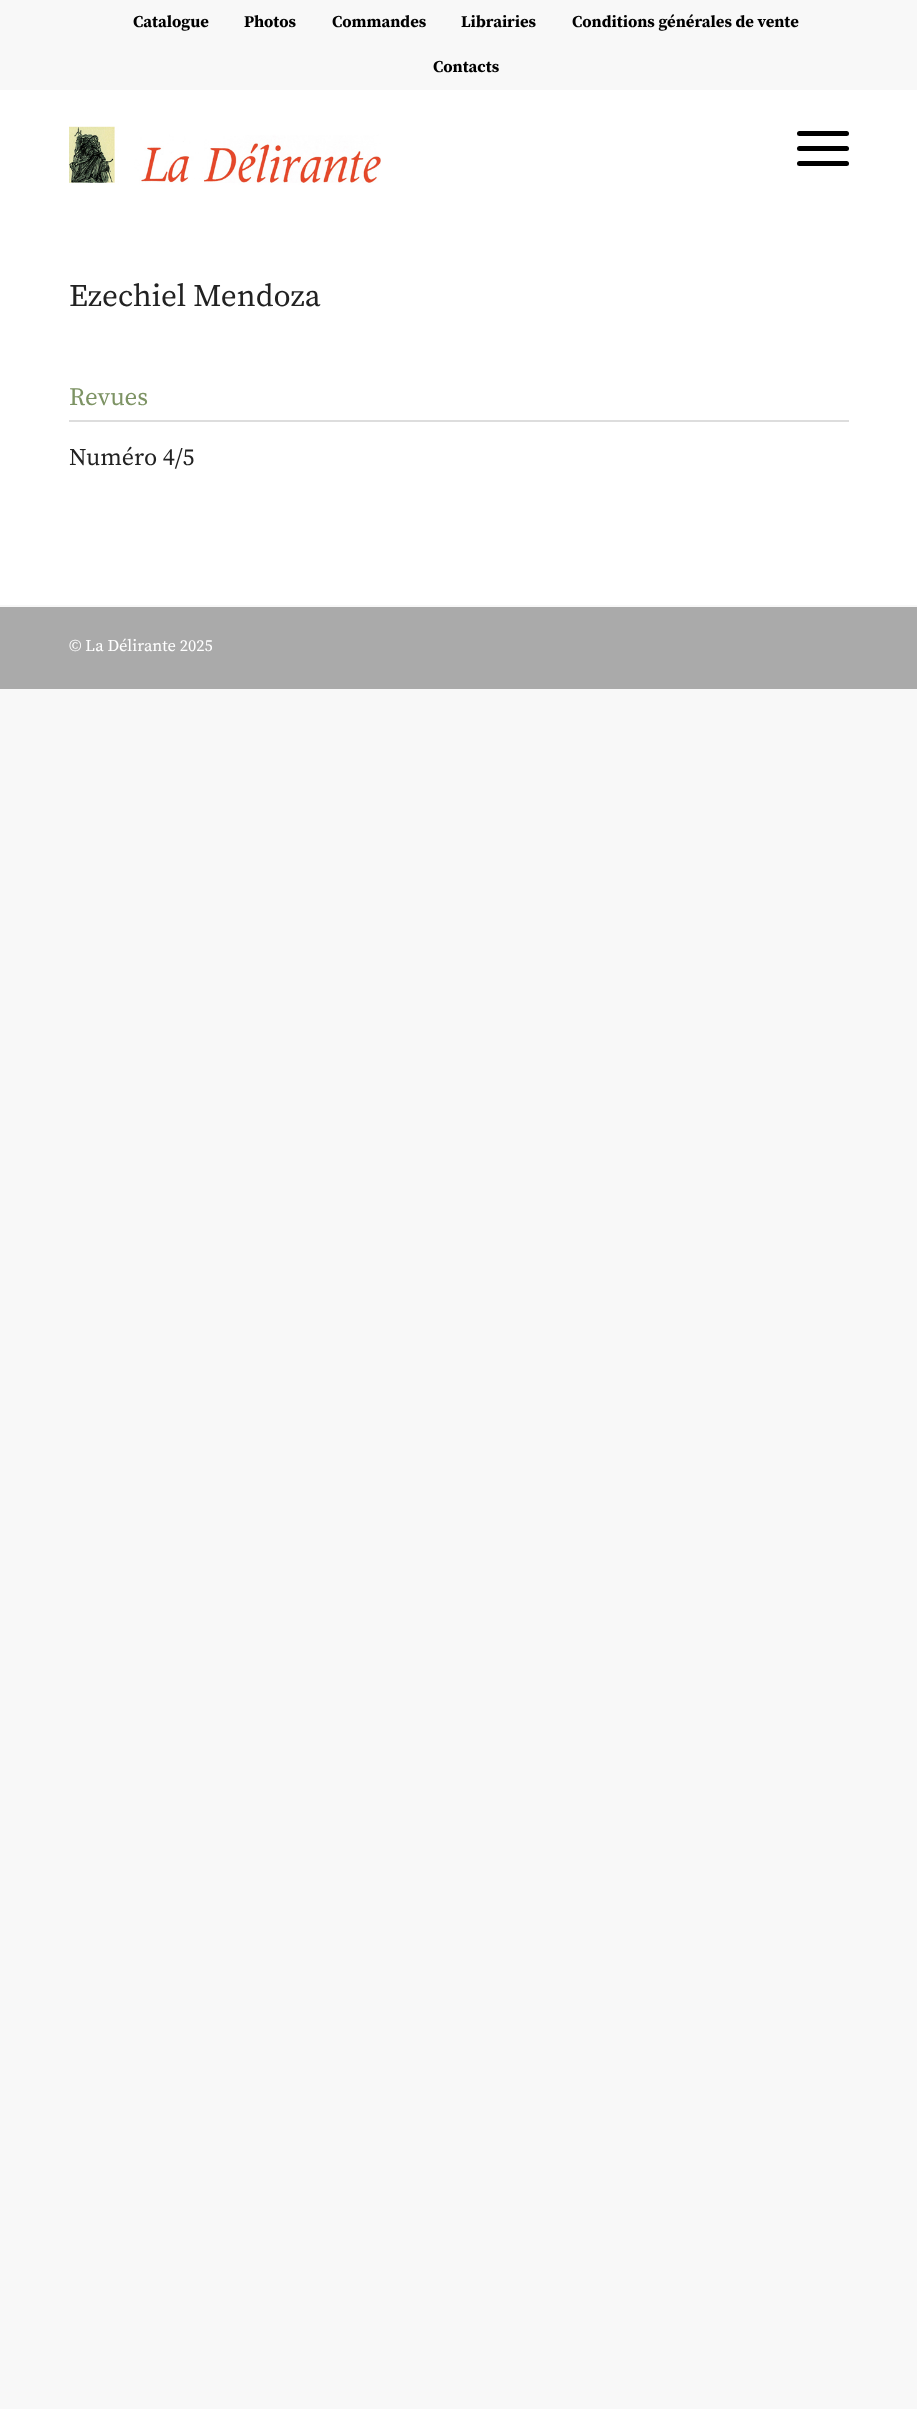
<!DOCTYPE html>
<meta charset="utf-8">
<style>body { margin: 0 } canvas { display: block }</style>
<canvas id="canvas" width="917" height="2409"></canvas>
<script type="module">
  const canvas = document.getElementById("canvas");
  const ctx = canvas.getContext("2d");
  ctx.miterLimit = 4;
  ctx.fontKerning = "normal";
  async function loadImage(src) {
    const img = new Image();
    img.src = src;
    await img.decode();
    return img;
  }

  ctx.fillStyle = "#f8f8f8";
  ctx.fillRect(0, 0, 917, 2409);
  ctx.font = "bold 16.5px Source Serif Pro";
  ctx.fillStyle = "#000000";
  ctx.fillText("Catalogue", 133, 27);
  ctx.fillText("Photos", 244, 27);
  ctx.fillText("Commandes", 332, 27);
  ctx.fillText("Librairies", 461, 27);
  ctx.fillText("Conditions générales de vente", 572, 27);
  ctx.fillText("Contacts", 433, 72);
  ctx.fillStyle = "#ffffff";
  ctx.fillRect(0, 90, 917, 515);
  ctx.drawImage(await loadImage("img1.png"), 69, 126, 312, 59);
  ctx.fillStyle = "#000000";
  ctx.beginPath();
  ctx.roundRect(797, 146, 52, 5, 2.5);
  ctx.fill();
  ctx.beginPath();
  ctx.roundRect(797, 131, 52, 5, 2.5);
  ctx.fill();
  ctx.beginPath();
  ctx.roundRect(797, 161, 52, 5, 2.5);
  ctx.fill();
  ctx.font = "31.25px Source Serif Pro";
  ctx.fillStyle = "#222222";
  ctx.fillText("Ezechiel Mendoza", 69, 306);
  ctx.font = "25px Source Serif Pro";
  ctx.fillStyle = "#7d9364";
  ctx.fillText("Revues", 69, 405);
  ctx.fillStyle = "#dddddd";
  ctx.fillRect(69, 420, 780, 2);
  ctx.font = "24px Source Serif Pro";
  ctx.fillStyle = "#222222";
  ctx.fillText("Numéro 4/5", 69, 465);
  ctx.fillStyle = "#aaaaaa";
  ctx.fillRect(0, 607, 917, 82);
  ctx.font = "16.5px Source Serif Pro";
  ctx.fillStyle = "#ffffff";
  ctx.fillText("© La Délirante 2025", 69, 651);
</script>
